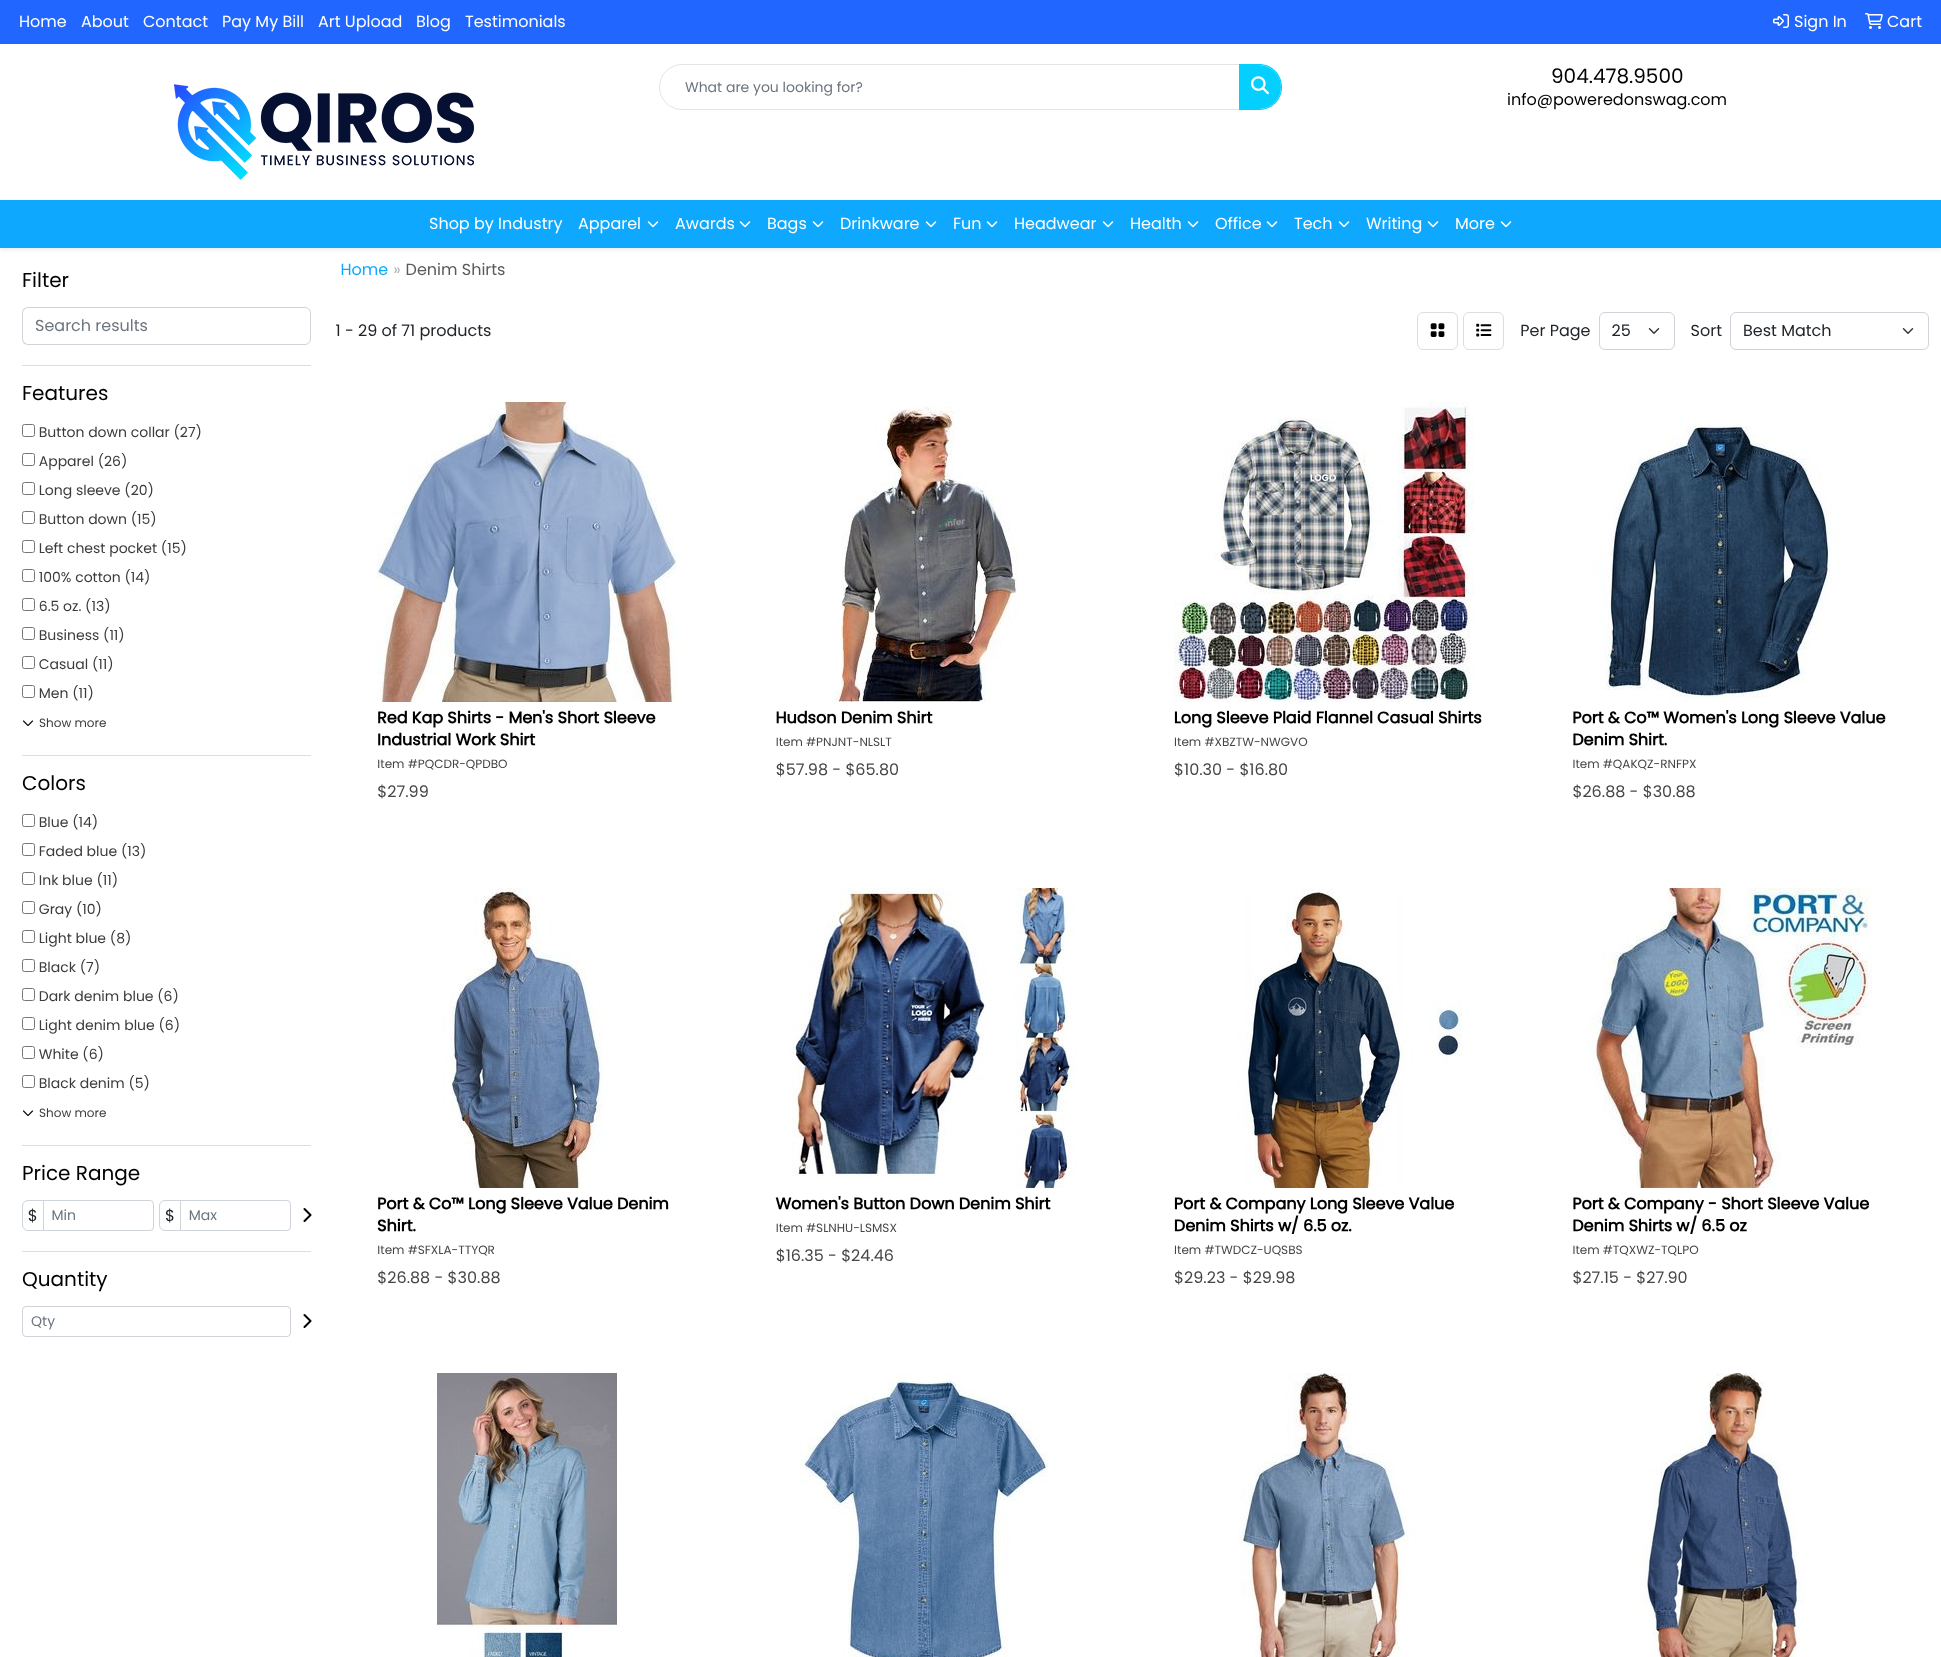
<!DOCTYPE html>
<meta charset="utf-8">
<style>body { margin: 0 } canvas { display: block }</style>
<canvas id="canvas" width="1941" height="1657"></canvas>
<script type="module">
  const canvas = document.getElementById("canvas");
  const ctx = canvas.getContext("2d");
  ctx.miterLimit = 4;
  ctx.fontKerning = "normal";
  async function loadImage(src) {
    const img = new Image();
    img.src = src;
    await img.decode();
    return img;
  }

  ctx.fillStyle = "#ffffff";
  ctx.fillRect(0, 0, 1941, 1657);
  ctx.fillStyle = "#2066ff";
  ctx.fillRect(0, 0, 1941, 44);
  ctx.font = "16px Poppins";
  ctx.fillStyle = "#ffffff";
  ctx.fillText("Home", 19, 27);
  ctx.fillText("About", 81, 27);
  ctx.fillText("Contact", 143, 27);
  ctx.fillText("Pay My Bill", 222, 27);
  ctx.fillText("Art Upload", 318, 27);
  ctx.fillText("Blog", 416, 27);
  ctx.fillText("Testimonials", 465, 27);
  ctx.drawImage(await loadImage("img1.png"), 1773, 14, 16, 14);
  ctx.fillText("Sign In", 1794, 27);
  ctx.drawImage(await loadImage("img2.png"), 1865, 13, 18, 16);
  ctx.fillText("Cart", 1887, 27);
  ctx.drawImage(await loadImage("img3.png"), 174, 84, 300, 96);
  ctx.beginPath();
  ctx.roundRect(659.5, 64.5, 580, 45, [22.5, 0, 0, 22.5]);
  ctx.strokeStyle = "#e4e4e4";
  ctx.stroke();
  ctx.font = "14px Poppins";
  ctx.fillStyle = "#6c757d";
  ctx.fillText("What are you looking for?", 685, 92);
  ctx.fillStyle = "#04cfff";
  ctx.beginPath();
  ctx.roundRect(1239, 65, 42, 44, [0, 22, 22, 0]);
  ctx.fill();
  ctx.beginPath();
  ctx.moveTo(1239, 64);
  ctx.lineTo(1259, 64);
  ctx.bezierCurveTo(1272, 64, 1282, 74, 1282, 87);
  ctx.bezierCurveTo(1282, 100, 1272, 110, 1259, 110);
  ctx.lineTo(1239, 110);
  ctx.closePath();
  ctx.moveTo(1239, 65);
  ctx.lineTo(1259, 65);
  ctx.bezierCurveTo(1271, 65, 1281, 75, 1281, 87);
  ctx.bezierCurveTo(1281, 99, 1271, 109, 1259, 109);
  ctx.lineTo(1239, 109);
  ctx.closePath();
  ctx.fill("evenodd");
  ctx.drawImage(await loadImage("img4.png"), 1251, 76, 18, 19);
  ctx.font = "20px Poppins";
  ctx.fillStyle = "#000000";
  ctx.fillText("904.478.9500", 1551, 83);
  ctx.font = "16px Poppins";
  ctx.fillText("info@poweredonswag.com", 1507, 105);
  ctx.fillStyle = "rgba(0, 0, 0, 0.07)";
  ctx.filter = "blur(2px)";
  ctx.beginPath();
  ctx.rect(0, 202, 1941, 48);
  ctx.fill();
  ctx.filter = "none";
  ctx.fillStyle = "#0ea8ff";
  ctx.fillRect(0, 200, 1941, 48);
  ctx.fillStyle = "#ffffff";
  ctx.fillText("Shop by Industry", 429, 229);
  ctx.fillText("Apparel", 578, 229);
  ctx.drawImage(await loadImage("img5.png"), 647, 221, 12, 7);
  ctx.fillText("Awards", 675, 229);
  ctx.drawImage(await loadImage("img5.png"), 739, 221, 12, 7);
  ctx.fillText("Bags", 767, 229);
  ctx.drawImage(await loadImage("img5.png"), 812, 221, 12, 7);
  ctx.fillText("Drinkware", 840, 229);
  ctx.drawImage(await loadImage("img5.png"), 925, 221, 12, 7);
  ctx.fillText("Fun", 953, 229);
  ctx.drawImage(await loadImage("img5.png"), 986, 221, 12, 7);
  ctx.fillText("Headwear", 1014, 229);
  ctx.drawImage(await loadImage("img5.png"), 1102, 221, 12, 7);
  ctx.fillText("Health", 1130, 229);
  ctx.drawImage(await loadImage("img5.png"), 1187, 221, 12, 7);
  ctx.fillText("Office", 1215, 229);
  ctx.drawImage(await loadImage("img5.png"), 1266, 221, 12, 7);
  ctx.fillText("Tech", 1294, 229);
  ctx.drawImage(await loadImage("img5.png"), 1338, 221, 12, 7);
  ctx.fillText("Writing", 1366, 229);
  ctx.drawImage(await loadImage("img5.png"), 1427, 221, 12, 7);
  ctx.fillText("More", 1455, 229);
  ctx.drawImage(await loadImage("img5.png"), 1500, 221, 12, 7);
  ctx.drawImage(await loadImage("img6.png"), 22, 262, 1907, 1395);
</script>
